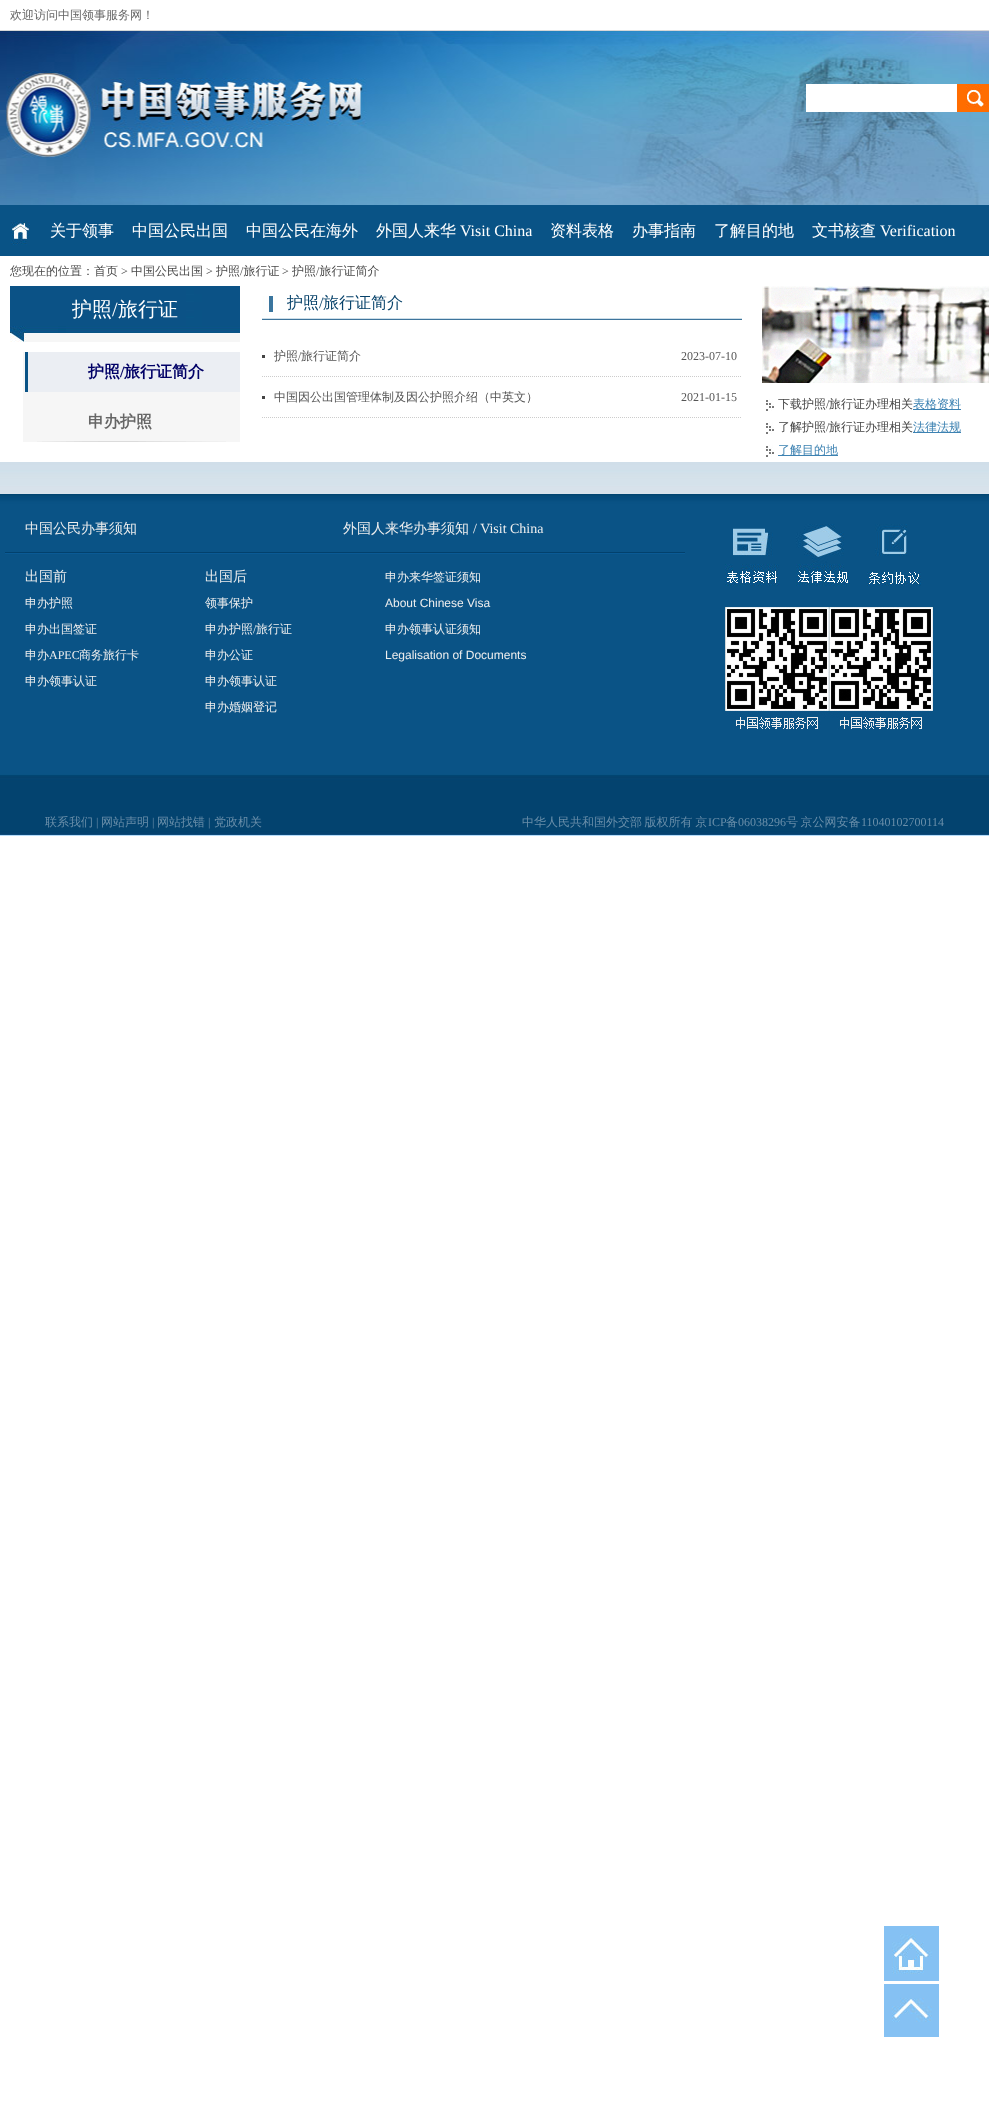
<!DOCTYPE html>
<meta charset="utf-8">
<style>body { margin: 0 } canvas { display: block }</style>
<canvas id="canvas" width="989" height="2101"></canvas>
<script type="module">
  const canvas = document.getElementById("canvas");
  const ctx = canvas.getContext("2d");
  ctx.miterLimit = 4;
  ctx.fontKerning = "normal";
  async function loadImage(src) {
    const img = new Image();
    img.src = src;
    await img.decode();
    return img;
  }

  ctx.fillStyle = "#ffffff";
  ctx.fillRect(0, 0, 989, 2101);
  ctx.font = "500 12px WenQuanYi Zen Hei";
  ctx.fillStyle = "#666666";
  ctx.fillText("欢迎访问中国领事服务网！", 10, 19);
  ctx.drawImage(await loadImage("img1.png"), 0, 462, 989, 32);
  ctx.drawImage(await loadImage("img2.png"), 0, 30, 989, 175);
  ctx.fillStyle = "#095386";
  ctx.fillRect(0, 205, 989, 51);
  ctx.drawImage(await loadImage("img3.png"), 956, 84, 33, 28);
  ctx.fillStyle = "#ffffff";
  ctx.fillRect(806, 84, 150, 28);
  ctx.drawImage(await loadImage("img4.png"), 11, 221, 19, 24);
  ctx.font = "500 16px WenQuanYi Zen Hei";
  ctx.fillText("关于领事", 50, 236);
  ctx.fillText("中国公民出国", 132, 236);
  ctx.fillText("中国公民在海外", 246, 236);
  ctx.fillText("外国人来华", 376, 236);
  ctx.font = "16px Liberation Serif";
  ctx.fillText("Visit China", 460, 236);
  ctx.font = "500 16px WenQuanYi Zen Hei";
  ctx.fillText("资料表格", 550, 236);
  ctx.fillText("办事指南", 632, 236);
  ctx.fillText("了解目的地", 714, 236);
  ctx.fillText("文书核查", 812, 236);
  ctx.font = "16px Liberation Serif";
  ctx.fillText("Verification", 880, 236);
  ctx.font = "500 12px WenQuanYi Zen Hei";
  ctx.fillStyle = "#4a4a4a";
  ctx.fillText("您现在的位置：首页", 10, 275);
  ctx.fillText("中国公民出国", 131, 275);
  ctx.fillText("护照 旅行证", 216, 275);
  ctx.fillText("护照 旅行证简介", 292, 275);
  ctx.font = "12px Liberation Serif";
  ctx.fillText(">", 121, 275);
  ctx.fillText(">", 206, 275);
  ctx.fillText("/", 240, 275);
  ctx.fillText(">", 282, 275);
  ctx.fillText("/", 316, 275);
  ctx.drawImage(await loadImage("img5.png"), 10, 286, 230, 56);
  ctx.font = "500 20px WenQuanYi Zen Hei";
  ctx.fillStyle = "#ffffff";
  ctx.fillText("护照", 72, 316);
  ctx.font = "20px Liberation Serif";
  ctx.fillText("/", 112, 316);
  ctx.font = "500 20px WenQuanYi Zen Hei";
  ctx.fillText("旅行证", 118, 316);
  ctx.fillStyle = "#f6f6f6";
  ctx.fillRect(23, 352, 217, 90);
  ctx.fillStyle = "#ebeef3";
  ctx.fillRect(28, 352, 212, 40);
  ctx.fillStyle = "#0a5386";
  ctx.fillRect(25, 352, 3, 40);
  ctx.font = "bold 16px WenQuanYi Zen Hei";
  ctx.fillStyle = "#000066";
  ctx.fillText("护照", 88, 377);
  ctx.font = "bold 16px Liberation Serif";
  ctx.fillText("/", 120, 377);
  ctx.font = "bold 16px WenQuanYi Zen Hei";
  ctx.fillText("旅行证简介", 124, 377);
  ctx.drawImage(await loadImage("img6.png"), 37, 441, 189, 1);
  ctx.fillStyle = "#666666";
  ctx.fillText("申办护照", 88, 427);
  ctx.drawImage(await loadImage("img7.png"), 262, 296, 480, 24);
  ctx.font = "500 16px WenQuanYi Zen Hei";
  ctx.fillStyle = "#07426a";
  ctx.fillText("护照", 287, 308);
  ctx.font = "16px Liberation Serif";
  ctx.fillText("/", 319, 308);
  ctx.font = "500 16px WenQuanYi Zen Hei";
  ctx.fillText("旅行证简介", 323, 308);
  ctx.fillStyle = "#444444";
  ctx.fillRect(262, 355, 3, 3);
  ctx.beginPath();
  ctx.moveTo(262, 376.5);
  ctx.lineTo(742, 376.5);
  ctx.strokeStyle = "#cccccc";
  ctx.setLineDash([1, 1]);
  ctx.stroke();
  ctx.font = "500 12px WenQuanYi Zen Hei";
  ctx.fillStyle = "#555555";
  ctx.fillText("护照", 274, 360);
  ctx.font = "12px Liberation Serif";
  ctx.fillText("/", 298, 360);
  ctx.font = "500 12px WenQuanYi Zen Hei";
  ctx.fillText("旅行证简介", 301, 360);
  ctx.font = "12px Liberation Serif";
  ctx.fillText("2023-07-10", 681, 360);
  ctx.fillStyle = "#444444";
  ctx.fillRect(262, 396, 3, 3);
  ctx.beginPath();
  ctx.moveTo(262, 417.5);
  ctx.lineTo(742, 417.5);
  ctx.stroke();
  ctx.font = "500 12px WenQuanYi Zen Hei";
  ctx.fillStyle = "#555555";
  ctx.fillText("中国因公出国管理体制及因公护照介绍（中英文）", 274, 401);
  ctx.font = "12px Liberation Serif";
  ctx.fillText("2021-01-15", 681, 401);
  ctx.drawImage(await loadImage("img8.png"), 762, 286, 227, 97);
  ctx.drawImage(await loadImage("img9.png"), 766, 399, 8, 12);
  ctx.font = "500 12px WenQuanYi Zen Hei";
  ctx.fillStyle = "#444444";
  ctx.fillText("下载护照", 778, 408);
  ctx.font = "12px Liberation Serif";
  ctx.fillText("/", 826, 408);
  ctx.font = "500 12px WenQuanYi Zen Hei";
  ctx.fillText("旅行证办理相关", 829, 408);
  ctx.fillStyle = "#3d82b2";
  ctx.fillRect(913, 409, 48, 1);
  ctx.fillText("表格资料", 913, 408);
  ctx.drawImage(await loadImage("img9.png"), 766, 422, 8, 12);
  ctx.fillStyle = "#444444";
  ctx.fillText("了解护照", 778, 431);
  ctx.font = "12px Liberation Serif";
  ctx.fillText("/", 826, 431);
  ctx.font = "500 12px WenQuanYi Zen Hei";
  ctx.fillText("旅行证办理相关", 829, 431);
  ctx.fillStyle = "#3d82b2";
  ctx.fillRect(913, 432, 48, 1);
  ctx.fillText("法律法规", 913, 431);
  ctx.drawImage(await loadImage("img9.png"), 766, 445, 8, 12);
  ctx.fillRect(778, 455, 60, 1);
  ctx.fillText("了解目的地", 778, 454);
  ctx.drawImage(await loadImage("img10.png"), 0, 494, 989, 342);
  ctx.drawImage(await loadImage("img11.png"), 5, 552, 680, 2);
  ctx.font = "500 14px WenQuanYi Zen Hei";
  ctx.fillStyle = "#eeeeee";
  ctx.fillText("中国公民办事须知", 25, 533);
  ctx.fillText("外国人来华办事须知", 343, 533);
  ctx.font = "14px Liberation Serif";
  ctx.fillText("/ Visit China", 473, 533);
  ctx.font = "500 14px WenQuanYi Zen Hei";
  ctx.fillText("出国前", 25, 581);
  ctx.font = "500 12px WenQuanYi Zen Hei";
  ctx.fillText("申办护照", 25, 607);
  ctx.fillText("申办出国签证", 25, 633);
  ctx.fillText("申办", 25, 659);
  ctx.font = "12px Liberation Serif";
  ctx.fillText("APEC", 49, 659);
  ctx.font = "500 12px WenQuanYi Zen Hei";
  ctx.fillText("商务旅行卡", 79, 659);
  ctx.fillText("申办领事认证", 25, 685);
  ctx.font = "500 14px WenQuanYi Zen Hei";
  ctx.fillText("出国后", 205, 581);
  ctx.font = "500 12px WenQuanYi Zen Hei";
  ctx.fillText("领事保护", 205, 607);
  ctx.fillText("申办护照", 205, 633);
  ctx.font = "12px Liberation Serif";
  ctx.fillText("/", 253, 633);
  ctx.font = "500 12px WenQuanYi Zen Hei";
  ctx.fillText("旅行证", 256, 633);
  ctx.fillText("申办公证", 205, 659);
  ctx.fillText("申办领事认证", 205, 685);
  ctx.fillText("申办婚姻登记", 205, 711);
  ctx.fillText("申办来华签证须知", 385, 581);
  ctx.font = "12px Liberation Sans";
  ctx.fillText("About Chinese Visa", 385, 607);
  ctx.font = "500 12px WenQuanYi Zen Hei";
  ctx.fillText("申办领事认证须知", 385, 633);
  ctx.font = "12px Liberation Sans";
  ctx.fillText("Legalisation of Documents", 385, 659);
  ctx.drawImage(await loadImage("img12.png"), 725, 528, 54, 58);
  ctx.drawImage(await loadImage("img13.png"), 796, 524, 54, 62);
  ctx.drawImage(await loadImage("img14.png"), 867, 524, 54, 62);
  ctx.drawImage(await loadImage("img15.png"), 725, 607, 104, 123);
  ctx.drawImage(await loadImage("img15.png"), 829, 607, 104, 123);
  ctx.font = "500 12px WenQuanYi Zen Hei";
  ctx.fillStyle = "#698ea9";
  ctx.fillText("联系我们", 45, 826);
  ctx.font = "12px Liberation Serif";
  ctx.fillText("|", 96, 826);
  ctx.font = "500 12px WenQuanYi Zen Hei";
  ctx.fillText("网站声明", 101, 826);
  ctx.font = "12px Liberation Serif";
  ctx.fillText("|", 152, 826);
  ctx.font = "500 12px WenQuanYi Zen Hei";
  ctx.fillText("网站找错", 157, 826);
  ctx.font = "12px Liberation Serif";
  ctx.fillText("|", 208, 826);
  ctx.font = "500 12px WenQuanYi Zen Hei";
  ctx.fillText("党政机关", 214, 826);
  ctx.wordSpacing = "-1px";
  ctx.fillText("中华人民共和国外交部 版权所有 京", 522, 826);
  ctx.wordSpacing = "0px";
  ctx.font = "12px Liberation Serif";
  ctx.fillText("ICP", 708, 826);
  ctx.font = "500 12px WenQuanYi Zen Hei";
  ctx.fillText("备", 726, 826);
  ctx.font = "12px Liberation Serif";
  ctx.fillText("06038296", 738, 826);
  ctx.wordSpacing = "-1px";
  ctx.font = "500 12px WenQuanYi Zen Hei";
  ctx.fillText("号 京公网安备", 786, 826);
  ctx.wordSpacing = "0px";
  ctx.font = "12px Liberation Serif";
  ctx.fillText("11040102700114", 861, 826);
  ctx.drawImage(await loadImage("img16.png"), 884, 1926, 55, 55);
  ctx.drawImage(await loadImage("img17.png"), 884, 1984, 55, 53);
</script>
